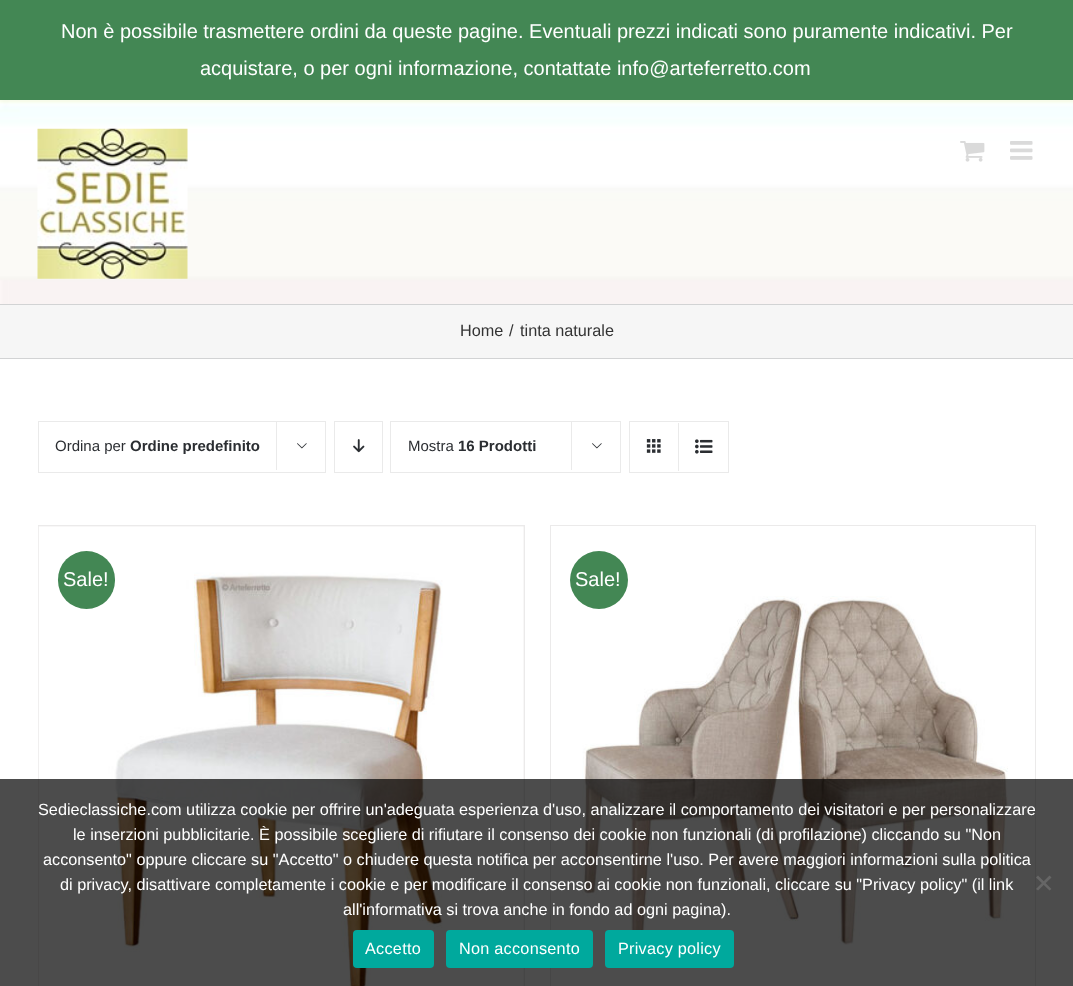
<!DOCTYPE html>
<meta charset="utf-8">
<style>body { margin: 0 } canvas { display: block }</style>
<canvas id="canvas" width="1073" height="986"></canvas>
<script type="module">
  const canvas = document.getElementById("canvas");
  const ctx = canvas.getContext("2d");
  ctx.miterLimit = 4;
  ctx.fontKerning = "normal";
  async function loadImage(src) {
    const img = new Image();
    img.src = src;
    await img.decode();
    return img;
  }

  ctx.fillStyle = "#ffffff";
  ctx.fillRect(0, 0, 1073, 986);
  ctx.fillStyle = "#438754";
  ctx.fillRect(0, 0, 1073, 100);
  ctx.font = "20px Liberation Sans";
  ctx.fillStyle = "#ffffff";
  ctx.fillText("Non è possibile trasmettere ordini da queste pagine. Eventuali prezzi indicati sono puramente indicativi. Per", 61, 38);
  ctx.fillText("acquistare, o per ogni informazione, contattate info@arteferretto.com", 200, 75);
  ctx.drawImage(await loadImage("img1.png"), 0, 100, 1073, 204);
  ctx.drawImage(await loadImage("img2.png"), 37, 128, 151, 151);
  ctx.drawImage(await loadImage("img3.png"), 960, 141, 25, 21);
  ctx.drawImage(await loadImage("img4.png"), 1010, 141, 23, 19);
  ctx.fillStyle = "#f6f6f6";
  ctx.fillRect(0, 305, 1073, 53);
  ctx.fillStyle = "#d2d3d4";
  ctx.fillRect(0, 304, 1073, 1);
  ctx.fillRect(0, 358, 1073, 1);
  ctx.font = "16.25px Liberation Sans";
  ctx.fillStyle = "#333333";
  ctx.fillText("Home", 460, 336);
  ctx.fillText("/", 509, 336);
  ctx.fillText("tinta naturale", 520, 336);
  ctx.strokeStyle = "#eaeaea";
  ctx.strokeRect(38.5, 421.5, 287, 51);
  ctx.font = "15px Liberation Sans";
  ctx.fillStyle = "#2b2e32";
  ctx.fillText("Ordina per", 55, 451);
  ctx.font = "bold 15px Liberation Sans";
  ctx.fillText("Ordine predefinito", 130, 451);
  ctx.fillStyle = "#eaeaea";
  ctx.fillRect(276, 421, 1, 49);
  ctx.drawImage(await loadImage("img5.png"), 297, 443, 10, 6);
  ctx.strokeRect(334.5, 421.5, 48, 51);
  ctx.drawImage(await loadImage("img6.png"), 353, 439, 12, 14);
  ctx.strokeRect(390.5, 421.5, 230, 51);
  ctx.font = "15px Liberation Sans";
  ctx.fillStyle = "#2b2e32";
  ctx.fillText("Mostra", 408, 451);
  ctx.font = "bold 15px Liberation Sans";
  ctx.fillText("16 Prodotti", 458, 451);
  ctx.fillStyle = "#eaeaea";
  ctx.fillRect(571, 421, 1, 49);
  ctx.drawImage(await loadImage("img5.png"), 592, 443, 10, 6);
  ctx.strokeRect(629.5, 421.5, 99, 51);
  ctx.fillRect(678, 423, 1, 48);
  ctx.drawImage(await loadImage("img7.png"), 646, 439, 15, 14);
  ctx.drawImage(await loadImage("img8.png"), 695, 439, 18, 15);
  ctx.fillStyle = "#ebeaea";
  ctx.fillRect(38, 525, 487, 1);
  ctx.fillRect(524, 525, 1, 461);
  ctx.fillRect(38, 525, 1, 461);
  ctx.fillStyle = "#e0dede";
  ctx.fillRect(39, 526, 485, 460);
  ctx.drawImage(await loadImage("img9.png"), 38, 526, 486, 460);
  ctx.fillStyle = "#438754";
  ctx.beginPath();
  ctx.roundRect(58, 551, 57, 58, 28.5);
  ctx.fill();
  ctx.font = "20px Liberation Sans";
  ctx.fillStyle = "#ffffff";
  ctx.fillText("Sale!", 63, 586);
  ctx.fillStyle = "#ebeaea";
  ctx.fillRect(550, 525, 486, 1);
  ctx.fillRect(1035, 525, 1, 461);
  ctx.fillRect(550, 525, 1, 461);
  ctx.drawImage(await loadImage("img10.png"), 582, 596, 426, 349);
  ctx.fillStyle = "#438754";
  ctx.beginPath();
  ctx.arc(599, 580, 29, 0, Math.PI * 2);
  ctx.fill();
  ctx.fillStyle = "#ffffff";
  ctx.fillText("Sale!", 575, 586);
  ctx.fillStyle = "rgba(0, 0, 0, 0.7)";
  ctx.fillRect(0, 779, 1073, 207);
  ctx.font = "16.25px Liberation Sans";
  ctx.fillStyle = "#ffffff";
  ctx.fillText("Sedieclassiche.com utilizza cookie per offrire un'adeguata esperienza d'uso, analizzare il comportamento dei visitatori e per personalizzare", 38, 815);
  ctx.fillText("le inserzioni pubblicitarie. È possibile scegliere di rifiutare il consenso dei cookie non funzionali (di profilazione) cliccando su \"Non", 73, 840);
  ctx.fillText("acconsento\" oppure cliccare su \"Accetto\" o chiudere questa notifica per acconsentirne l'uso. Per avere maggiori informazioni sulla politica", 43, 865);
  ctx.fillText("di privacy, disattivare completamente i cookie e per modificare il consenso ai cookie non funzionali, cliccare su \"Privacy policy\" (il link", 60, 890);
  ctx.fillText("all'informativa si trova anche in fondo ad ogni pagina).", 343, 915);
  ctx.fillStyle = "#666666";
  ctx.beginPath();
  ctx.moveTo(1049.5, 875.5);
  ctx.lineTo(1051.5, 877.5);
  ctx.lineTo(1038, 890.5);
  ctx.lineTo(1036, 889);
  ctx.closePath();
  ctx.fill();
  ctx.beginPath();
  ctx.moveTo(1036, 877.5);
  ctx.lineTo(1038, 875.5);
  ctx.lineTo(1051.5, 889);
  ctx.lineTo(1049.5, 890.5);
  ctx.closePath();
  ctx.fill();
  ctx.fillStyle = "#00a99d";
  ctx.beginPath();
  ctx.roundRect(353, 930, 81, 38, 4);
  ctx.fill();
  ctx.letterSpacing = "0.25px";
  ctx.fillStyle = "#ffffff";
  ctx.fillText("Accetto", 365, 954);
  ctx.fillStyle = "#00a99d";
  ctx.beginPath();
  ctx.roundRect(446, 930, 147, 38, 4);
  ctx.fill();
  ctx.fillStyle = "#ffffff";
  ctx.fillText("Non acconsento", 459, 954);
  ctx.fillStyle = "#00a99d";
  ctx.beginPath();
  ctx.roundRect(605, 930, 129, 38, 4);
  ctx.fill();
  ctx.fillStyle = "#ffffff";
  ctx.fillText("Privacy policy", 618, 954);
</script>
